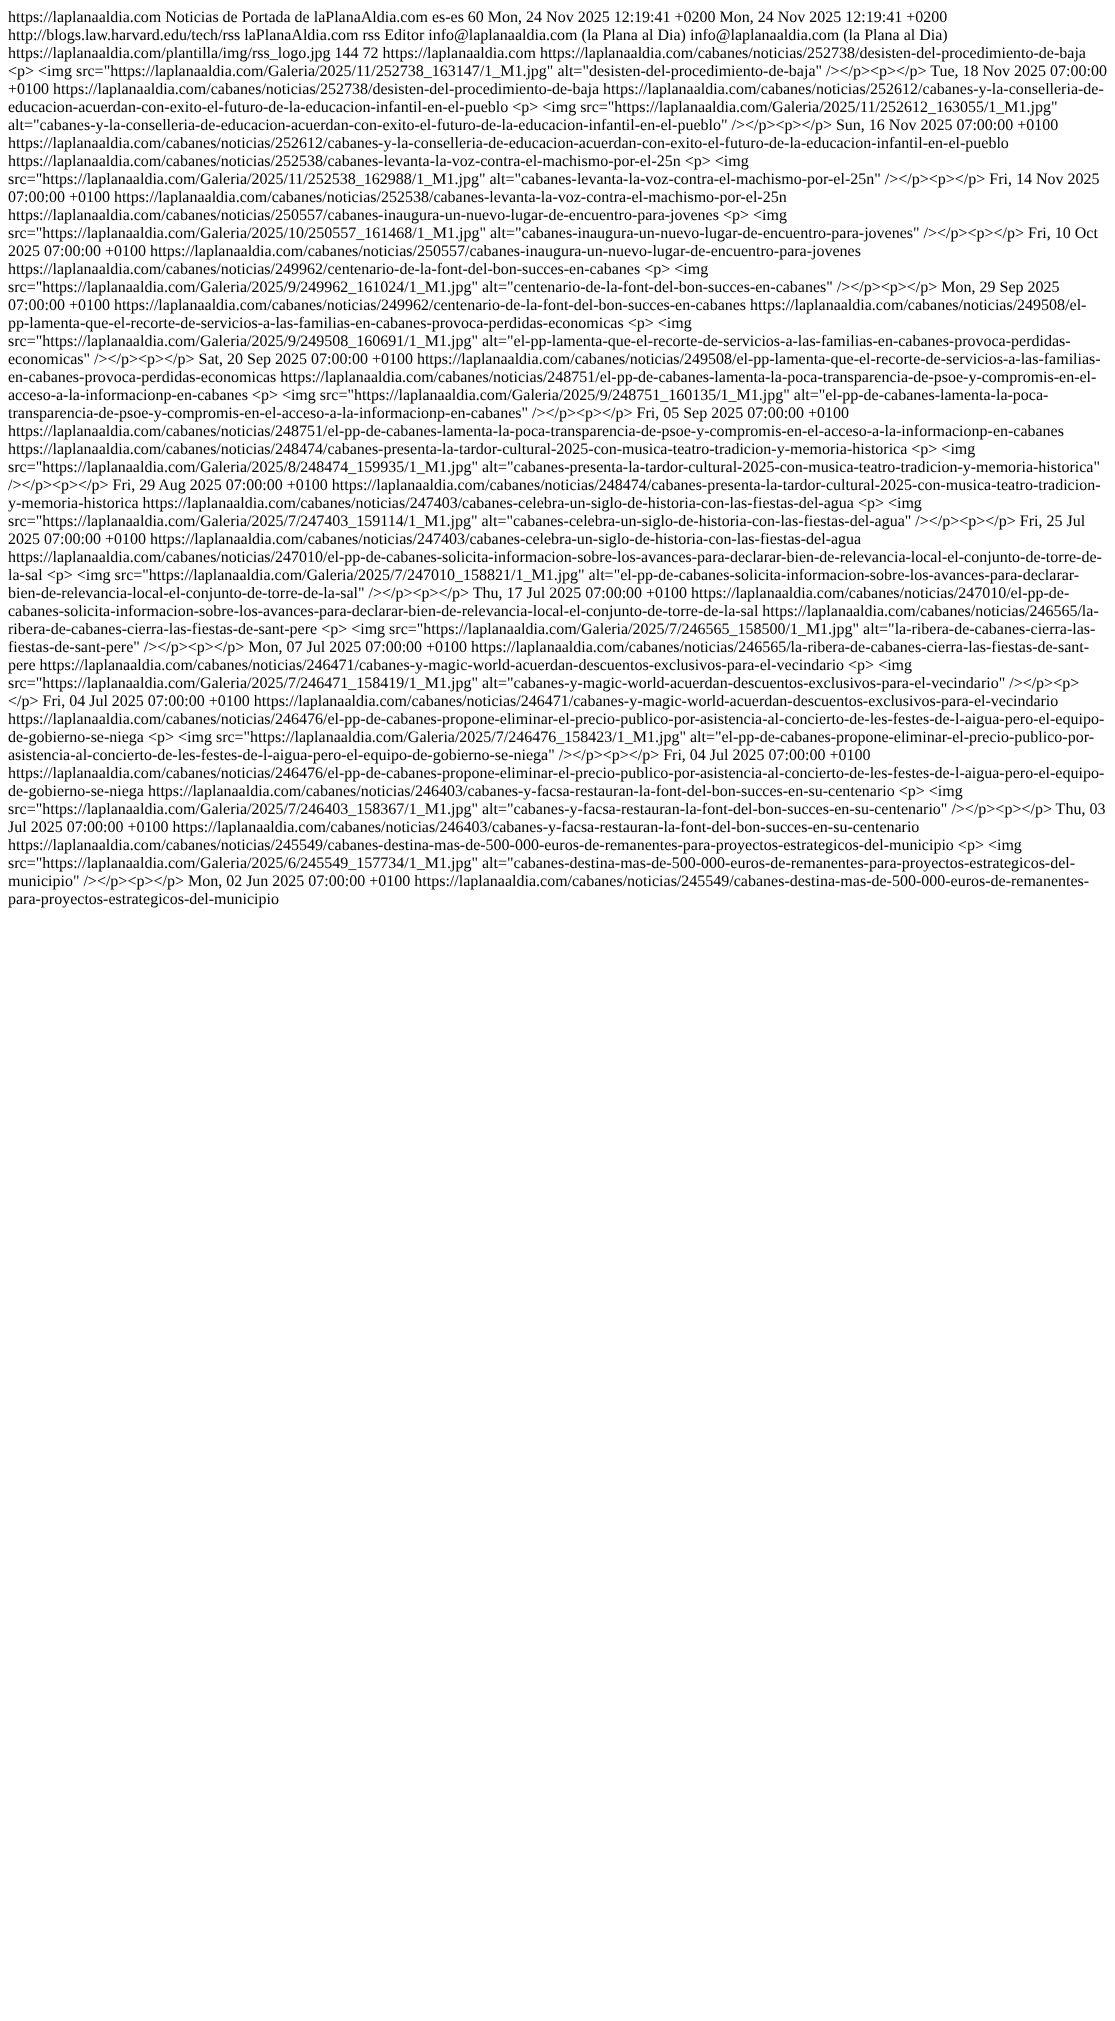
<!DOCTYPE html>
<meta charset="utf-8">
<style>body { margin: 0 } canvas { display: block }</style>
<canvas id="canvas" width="1115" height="2021"></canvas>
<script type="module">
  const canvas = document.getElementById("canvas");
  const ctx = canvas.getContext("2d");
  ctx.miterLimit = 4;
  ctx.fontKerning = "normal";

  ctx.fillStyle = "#ffffff";
  ctx.fillRect(0, 0, 1115, 2021);
  ctx.font = "16px Liberation Serif";
  ctx.fillStyle = "#000000";
  ctx.fillText("https://laplanaaldia.com Noticias de Portada de laPlanaAldia.com es-es 60 Mon, 24 Nov 2025 12:19:41 +0200 Mon, 24 Nov 2025 12:19:41 +0200", 8, 22);
  ctx.fillText("http://blogs.law.harvard.edu/tech/rss laPlanaAldia.com rss Editor info@laplanaaldia.com (la Plana al Dia) info@laplanaaldia.com (la Plana al Dia)", 8, 40);
  ctx.fillText("https://laplanaaldia.com/plantilla/img/rss_logo.jpg 144 72 https://laplanaaldia.com https://laplanaaldia.com/cabanes/noticias/252738/desisten-del-procedimiento-de-baja", 8, 58);
  ctx.fillText("<p> <img src=\"https://laplanaaldia.com/Galeria/2025/11/252738_163147/1_M1.jpg\" alt=\"desisten-del-procedimiento-de-baja\" /><\/p><p><\/p> Tue, 18 Nov 2025 07:00:00", 8, 76);
  ctx.fillText("+0100 https://laplanaaldia.com/cabanes/noticias/252738/desisten-del-procedimiento-de-baja https://laplanaaldia.com/cabanes/noticias/252612/cabanes-y-la-conselleria-de-", 8, 94);
  ctx.fillText("educacion-acuerdan-con-exito-el-futuro-de-la-educacion-infantil-en-el-pueblo <p> <img src=\"https://laplanaaldia.com/Galeria/2025/11/252612_163055/1_M1.jpg\"", 8, 112);
  ctx.fillText("alt=\"cabanes-y-la-conselleria-de-educacion-acuerdan-con-exito-el-futuro-de-la-educacion-infantil-en-el-pueblo\" /><\/p><p><\/p> Sun, 16 Nov 2025 07:00:00 +0100", 8, 130);
  ctx.fillText("https://laplanaaldia.com/cabanes/noticias/252612/cabanes-y-la-conselleria-de-educacion-acuerdan-con-exito-el-futuro-de-la-educacion-infantil-en-el-pueblo", 8, 148);
  ctx.fillText("https://laplanaaldia.com/cabanes/noticias/252538/cabanes-levanta-la-voz-contra-el-machismo-por-el-25n <p> <img", 8, 166);
  ctx.fillText("src=\"https://laplanaaldia.com/Galeria/2025/11/252538_162988/1_M1.jpg\" alt=\"cabanes-levanta-la-voz-contra-el-machismo-por-el-25n\" /><\/p><p><\/p> Fri, 14 Nov 2025", 8, 184);
  ctx.fillText("07:00:00 +0100 https://laplanaaldia.com/cabanes/noticias/252538/cabanes-levanta-la-voz-contra-el-machismo-por-el-25n", 8, 202);
  ctx.fillText("https://laplanaaldia.com/cabanes/noticias/250557/cabanes-inaugura-un-nuevo-lugar-de-encuentro-para-jovenes <p> <img", 8, 220);
  ctx.fillText("src=\"https://laplanaaldia.com/Galeria/2025/10/250557_161468/1_M1.jpg\" alt=\"cabanes-inaugura-un-nuevo-lugar-de-encuentro-para-jovenes\" /><\/p><p><\/p> Fri, 10 Oct", 8, 238);
  ctx.fillText("2025 07:00:00 +0100 https://laplanaaldia.com/cabanes/noticias/250557/cabanes-inaugura-un-nuevo-lugar-de-encuentro-para-jovenes", 8, 256);
  ctx.fillText("https://laplanaaldia.com/cabanes/noticias/249962/centenario-de-la-font-del-bon-succes-en-cabanes <p> <img", 8, 274);
  ctx.fillText("src=\"https://laplanaaldia.com/Galeria/2025/9/249962_161024/1_M1.jpg\" alt=\"centenario-de-la-font-del-bon-succes-en-cabanes\" /><\/p><p><\/p> Mon, 29 Sep 2025", 8, 292);
  ctx.fillText("07:00:00 +0100 https://laplanaaldia.com/cabanes/noticias/249962/centenario-de-la-font-del-bon-succes-en-cabanes https://laplanaaldia.com/cabanes/noticias/249508/el-", 8, 310);
  ctx.fillText("pp-lamenta-que-el-recorte-de-servicios-a-las-familias-en-cabanes-provoca-perdidas-economicas <p> <img", 8, 328);
  ctx.fillText("src=\"https://laplanaaldia.com/Galeria/2025/9/249508_160691/1_M1.jpg\" alt=\"el-pp-lamenta-que-el-recorte-de-servicios-a-las-familias-en-cabanes-provoca-perdidas-", 8, 346);
  ctx.fillText("economicas\" /><\/p><p><\/p> Sat, 20 Sep 2025 07:00:00 +0100 https://laplanaaldia.com/cabanes/noticias/249508/el-pp-lamenta-que-el-recorte-de-servicios-a-las-familias-", 8, 364);
  ctx.fillText("en-cabanes-provoca-perdidas-economicas https://laplanaaldia.com/cabanes/noticias/248751/el-pp-de-cabanes-lamenta-la-poca-transparencia-de-psoe-y-compromis-en-el-", 8, 382);
  ctx.fillText("acceso-a-la-informacionp-en-cabanes <p> <img src=\"https://laplanaaldia.com/Galeria/2025/9/248751_160135/1_M1.jpg\" alt=\"el-pp-de-cabanes-lamenta-la-poca-", 8, 400);
  ctx.fillText("transparencia-de-psoe-y-compromis-en-el-acceso-a-la-informacionp-en-cabanes\" /><\/p><p><\/p> Fri, 05 Sep 2025 07:00:00 +0100", 8, 418);
  ctx.fillText("https://laplanaaldia.com/cabanes/noticias/248751/el-pp-de-cabanes-lamenta-la-poca-transparencia-de-psoe-y-compromis-en-el-acceso-a-la-informacionp-en-cabanes", 8, 436);
  ctx.fillText("https://laplanaaldia.com/cabanes/noticias/248474/cabanes-presenta-la-tardor-cultural-2025-con-musica-teatro-tradicion-y-memoria-historica <p> <img", 8, 454);
  ctx.fillText("src=\"https://laplanaaldia.com/Galeria/2025/8/248474_159935/1_M1.jpg\" alt=\"cabanes-presenta-la-tardor-cultural-2025-con-musica-teatro-tradicion-y-memoria-historica\"", 8, 472);
  ctx.fillText("/><\/p><p><\/p> Fri, 29 Aug 2025 07:00:00 +0100 https://laplanaaldia.com/cabanes/noticias/248474/cabanes-presenta-la-tardor-cultural-2025-con-musica-teatro-tradicion-", 8, 490);
  ctx.fillText("y-memoria-historica https://laplanaaldia.com/cabanes/noticias/247403/cabanes-celebra-un-siglo-de-historia-con-las-fiestas-del-agua <p> <img", 8, 508);
  ctx.fillText("src=\"https://laplanaaldia.com/Galeria/2025/7/247403_159114/1_M1.jpg\" alt=\"cabanes-celebra-un-siglo-de-historia-con-las-fiestas-del-agua\" /><\/p><p><\/p> Fri, 25 Jul", 8, 526);
  ctx.fillText("2025 07:00:00 +0100 https://laplanaaldia.com/cabanes/noticias/247403/cabanes-celebra-un-siglo-de-historia-con-las-fiestas-del-agua", 8, 544);
  ctx.fillText("https://laplanaaldia.com/cabanes/noticias/247010/el-pp-de-cabanes-solicita-informacion-sobre-los-avances-para-declarar-bien-de-relevancia-local-el-conjunto-de-torre-de-", 8, 562);
  ctx.fillText("la-sal <p> <img src=\"https://laplanaaldia.com/Galeria/2025/7/247010_158821/1_M1.jpg\" alt=\"el-pp-de-cabanes-solicita-informacion-sobre-los-avances-para-declarar-", 8, 580);
  ctx.fillText("bien-de-relevancia-local-el-conjunto-de-torre-de-la-sal\" /><\/p><p><\/p> Thu, 17 Jul 2025 07:00:00 +0100 https://laplanaaldia.com/cabanes/noticias/247010/el-pp-de-", 8, 598);
  ctx.fillText("cabanes-solicita-informacion-sobre-los-avances-para-declarar-bien-de-relevancia-local-el-conjunto-de-torre-de-la-sal https://laplanaaldia.com/cabanes/noticias/246565/la-", 8, 616);
  ctx.fillText("ribera-de-cabanes-cierra-las-fiestas-de-sant-pere <p> <img src=\"https://laplanaaldia.com/Galeria/2025/7/246565_158500/1_M1.jpg\" alt=\"la-ribera-de-cabanes-cierra-las-", 8, 634);
  ctx.fillText("fiestas-de-sant-pere\" /><\/p><p><\/p> Mon, 07 Jul 2025 07:00:00 +0100 https://laplanaaldia.com/cabanes/noticias/246565/la-ribera-de-cabanes-cierra-las-fiestas-de-sant-", 8, 652);
  ctx.fillText("pere https://laplanaaldia.com/cabanes/noticias/246471/cabanes-y-magic-world-acuerdan-descuentos-exclusivos-para-el-vecindario <p> <img", 8, 670);
  ctx.fillText("src=\"https://laplanaaldia.com/Galeria/2025/7/246471_158419/1_M1.jpg\" alt=\"cabanes-y-magic-world-acuerdan-descuentos-exclusivos-para-el-vecindario\" /><\/p><p>", 8, 688);
  ctx.fillText("<\/p> Fri, 04 Jul 2025 07:00:00 +0100 https://laplanaaldia.com/cabanes/noticias/246471/cabanes-y-magic-world-acuerdan-descuentos-exclusivos-para-el-vecindario", 8, 706);
  ctx.fillText("https://laplanaaldia.com/cabanes/noticias/246476/el-pp-de-cabanes-propone-eliminar-el-precio-publico-por-asistencia-al-concierto-de-les-festes-de-l-aigua-pero-el-equipo-", 8, 724);
  ctx.fillText("de-gobierno-se-niega <p> <img src=\"https://laplanaaldia.com/Galeria/2025/7/246476_158423/1_M1.jpg\" alt=\"el-pp-de-cabanes-propone-eliminar-el-precio-publico-por-", 8, 742);
  ctx.fillText("asistencia-al-concierto-de-les-festes-de-l-aigua-pero-el-equipo-de-gobierno-se-niega\" /><\/p><p><\/p> Fri, 04 Jul 2025 07:00:00 +0100", 8, 760);
  ctx.fillText("https://laplanaaldia.com/cabanes/noticias/246476/el-pp-de-cabanes-propone-eliminar-el-precio-publico-por-asistencia-al-concierto-de-les-festes-de-l-aigua-pero-el-equipo-", 8, 778);
  ctx.fillText("de-gobierno-se-niega https://laplanaaldia.com/cabanes/noticias/246403/cabanes-y-facsa-restauran-la-font-del-bon-succes-en-su-centenario <p> <img", 8, 796);
  ctx.fillText("src=\"https://laplanaaldia.com/Galeria/2025/7/246403_158367/1_M1.jpg\" alt=\"cabanes-y-facsa-restauran-la-font-del-bon-succes-en-su-centenario\" /><\/p><p><\/p> Thu, 03", 8, 814);
  ctx.fillText("Jul 2025 07:00:00 +0100 https://laplanaaldia.com/cabanes/noticias/246403/cabanes-y-facsa-restauran-la-font-del-bon-succes-en-su-centenario", 8, 832);
  ctx.fillText("https://laplanaaldia.com/cabanes/noticias/245549/cabanes-destina-mas-de-500-000-euros-de-remanentes-para-proyectos-estrategicos-del-municipio <p> <img", 8, 850);
  ctx.fillText("src=\"https://laplanaaldia.com/Galeria/2025/6/245549_157734/1_M1.jpg\" alt=\"cabanes-destina-mas-de-500-000-euros-de-remanentes-para-proyectos-estrategicos-del-", 8, 868);
  ctx.fillText("municipio\" /><\/p><p><\/p> Mon, 02 Jun 2025 07:00:00 +0100 https://laplanaaldia.com/cabanes/noticias/245549/cabanes-destina-mas-de-500-000-euros-de-remanentes-", 8, 886);
  ctx.fillText("para-proyectos-estrategicos-del-municipio", 8, 904);
</script>
